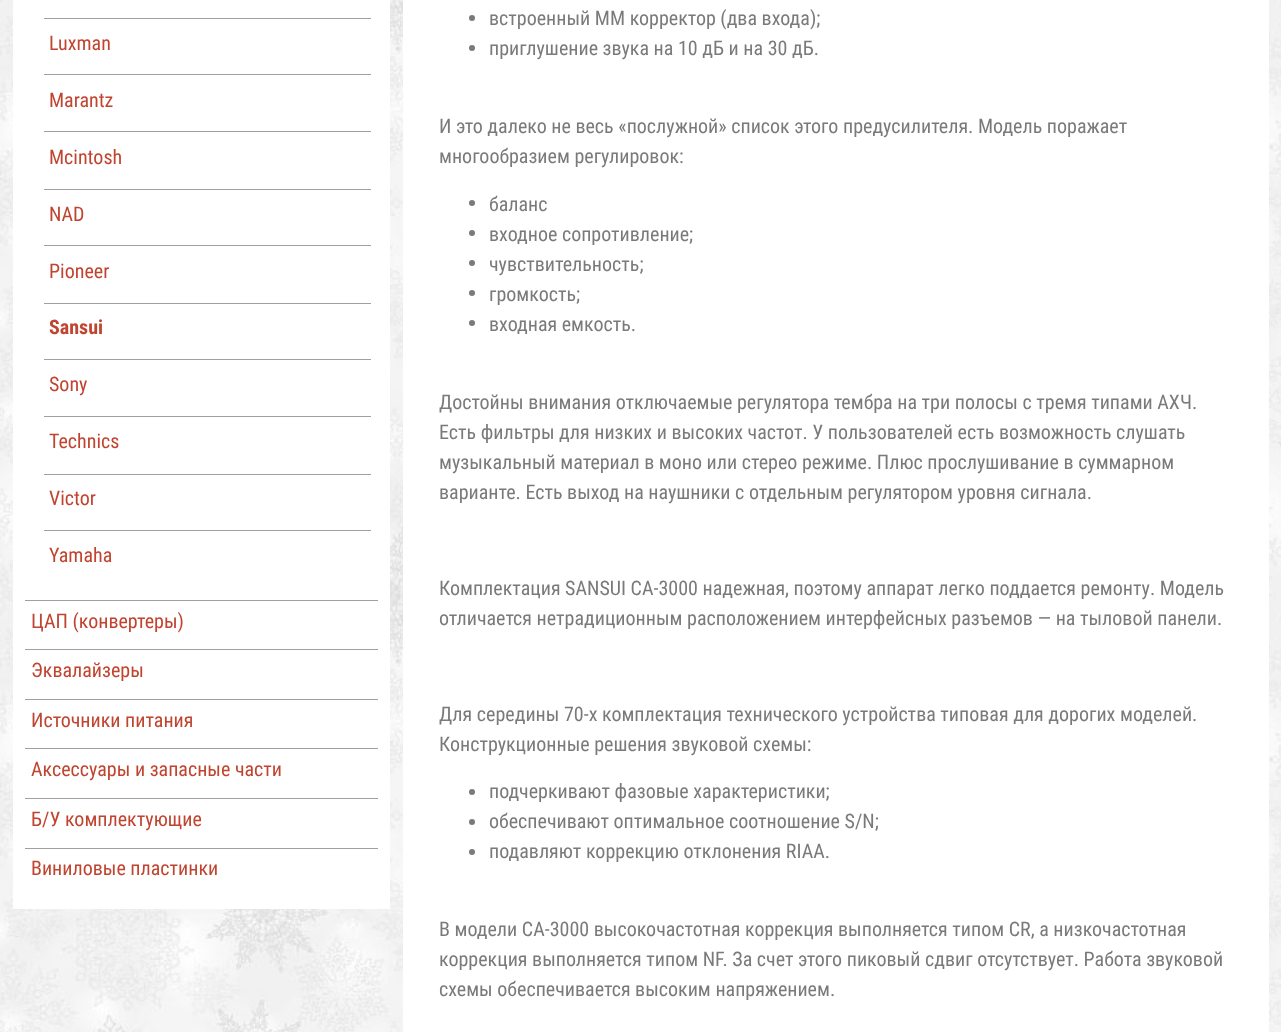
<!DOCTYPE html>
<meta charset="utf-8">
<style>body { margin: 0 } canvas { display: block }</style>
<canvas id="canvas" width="1281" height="1032"></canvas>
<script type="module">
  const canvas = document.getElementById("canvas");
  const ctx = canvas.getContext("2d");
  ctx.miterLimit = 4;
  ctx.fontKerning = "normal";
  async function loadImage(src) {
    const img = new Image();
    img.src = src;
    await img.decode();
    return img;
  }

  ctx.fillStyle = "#ffffff";
  ctx.fillRect(0, 0, 1281, 1032);
  ctx.drawImage(await loadImage("img1.png"), 0, 0, 1281, 1032);
  ctx.fillRect(13, 0, 377, 909);
  ctx.fillStyle = "#a0a0a0";
  ctx.fillRect(44, 18, 327, 1);
  ctx.font = "20px Roboto Condensed";
  ctx.fillStyle = "#c0442f";
  ctx.fillText("Luxman", 49, 50);
  ctx.fillStyle = "#a0a0a0";
  ctx.fillRect(44, 74, 327, 1);
  ctx.fillStyle = "#c0442f";
  ctx.fillText("Marantz", 49, 107);
  ctx.fillStyle = "#a0a0a0";
  ctx.fillRect(44, 131, 327, 1);
  ctx.fillStyle = "#c0442f";
  ctx.fillText("Mcintosh", 49, 164);
  ctx.fillStyle = "#a0a0a0";
  ctx.fillRect(44, 189, 327, 1);
  ctx.fillStyle = "#c0442f";
  ctx.fillText("NAD", 49, 221);
  ctx.fillStyle = "#a0a0a0";
  ctx.fillRect(44, 245, 327, 1);
  ctx.fillStyle = "#c0442f";
  ctx.fillText("Pioneer", 49, 278);
  ctx.fillStyle = "#a0a0a0";
  ctx.fillRect(44, 303, 327, 1);
  ctx.font = "bold 20px Roboto Condensed";
  ctx.fillStyle = "#c0442f";
  ctx.fillText("Sansui", 49, 334);
  ctx.fillStyle = "#a0a0a0";
  ctx.fillRect(44, 359, 327, 1);
  ctx.font = "20px Roboto Condensed";
  ctx.fillStyle = "#c0442f";
  ctx.fillText("Sony", 49, 391);
  ctx.fillStyle = "#a0a0a0";
  ctx.fillRect(44, 416, 327, 1);
  ctx.fillStyle = "#c0442f";
  ctx.fillText("Technics", 49, 448);
  ctx.fillStyle = "#a0a0a0";
  ctx.fillRect(44, 474, 327, 1);
  ctx.fillStyle = "#c0442f";
  ctx.fillText("Victor", 49, 505);
  ctx.fillStyle = "#a0a0a0";
  ctx.fillRect(44, 530, 327, 1);
  ctx.fillStyle = "#c0442f";
  ctx.fillText("Yamaha", 49, 562);
  ctx.fillStyle = "#a0a0a0";
  ctx.fillRect(25, 600, 353, 1);
  ctx.fillStyle = "#c0442f";
  ctx.fillText("ЦАП (конвертеры)", 31, 628);
  ctx.fillStyle = "#a0a0a0";
  ctx.fillRect(25, 649, 353, 1);
  ctx.fillStyle = "#c0442f";
  ctx.fillText("Эквалайзеры", 31, 677);
  ctx.fillStyle = "#a0a0a0";
  ctx.fillRect(25, 699, 353, 1);
  ctx.fillStyle = "#c0442f";
  ctx.fillText("Источники питания", 31, 727);
  ctx.fillStyle = "#a0a0a0";
  ctx.fillRect(25, 748, 353, 1);
  ctx.fillStyle = "#c0442f";
  ctx.fillText("Аксессуары и запасные части", 31, 776);
  ctx.fillStyle = "#a0a0a0";
  ctx.fillRect(25, 798, 353, 1);
  ctx.fillStyle = "#c0442f";
  ctx.fillText("Б/У комплектующие", 31, 826);
  ctx.fillStyle = "#a0a0a0";
  ctx.fillRect(25, 848, 353, 1);
  ctx.fillStyle = "#c0442f";
  ctx.fillText("Виниловые пластинки", 31, 875);
  ctx.fillStyle = "#ffffff";
  ctx.fillRect(403, 0, 866, 1032);
  ctx.fillStyle = "#7a7a7a";
  ctx.beginPath();
  ctx.arc(472, 18, 3, 0, Math.PI * 2);
  ctx.fill();
  ctx.fillText("встроенный ММ корректор (два входа);", 489, 25);
  ctx.beginPath();
  ctx.arc(472, 48, 3, 0, Math.PI * 2);
  ctx.fill();
  ctx.fillText("приглушение звука на 10 дБ и на 30 дБ.", 489, 55);
  ctx.fillText("И это далеко не весь «послужной» список этого предусилителя. Модель поражает", 439, 133);
  ctx.fillText("многообразием регулировок:", 439, 163);
  ctx.beginPath();
  ctx.arc(472, 203, 3, 0, Math.PI * 2);
  ctx.fill();
  ctx.fillText("баланс", 489, 211);
  ctx.beginPath();
  ctx.arc(472, 233, 3, 0, Math.PI * 2);
  ctx.fill();
  ctx.fillText("входное сопротивление;", 489, 241);
  ctx.beginPath();
  ctx.arc(472, 263, 3, 0, Math.PI * 2);
  ctx.fill();
  ctx.fillText("чувствительность;", 489, 271);
  ctx.beginPath();
  ctx.arc(472, 293, 3, 0, Math.PI * 2);
  ctx.fill();
  ctx.fillText("громкость;", 489, 301);
  ctx.beginPath();
  ctx.arc(472, 323, 3, 0, Math.PI * 2);
  ctx.fill();
  ctx.fillText("входная емкость.", 489, 331);
  ctx.fillText("Достойны внимания отключаемые регулятора тембра на три полосы с тремя типами АХЧ.", 439, 409);
  ctx.fillText("Есть фильтры для низких и высоких частот. У пользователей есть возможность слушать", 439, 439);
  ctx.fillText("музыкальный материал в моно или стерео режиме. Плюс прослушивание в суммарном", 439, 469);
  ctx.fillText("варианте. Есть выход на наушники с отдельным регулятором уровня сигнала.", 439, 499);
  ctx.fillText("Комплектация SANSUI CA-3000 надежная, поэтому аппарат легко поддается ремонту. Модель", 439, 595);
  ctx.fillText("отличается нетрадиционным расположением интерфейсных разъемов — на тыловой панели.", 439, 625);
  ctx.fillText("Для середины 70-х комплектация технического устройства типовая для дорогих моделей.", 439, 721);
  ctx.fillText("Конструкционные решения звуковой схемы:", 439, 751);
  ctx.beginPath();
  ctx.arc(472, 792, 3, 0, Math.PI * 2);
  ctx.fill();
  ctx.fillText("подчеркивают фазовые характеристики;", 489, 798);
  ctx.beginPath();
  ctx.arc(472, 822, 3, 0, Math.PI * 2);
  ctx.fill();
  ctx.fillText("обеспечивают оптимальное соотношение S/N;", 489, 828);
  ctx.beginPath();
  ctx.arc(472, 852, 3, 0, Math.PI * 2);
  ctx.fill();
  ctx.fillText("подавляют коррекцию отклонения RIAA.", 489, 858);
  ctx.fillText("В модели CA-3000 высокочастотная коррекция выполняется типом CR, а низкочастотная", 439, 936);
  ctx.fillText("коррекция выполняется типом NF. За счет этого пиковый сдвиг отсутствует. Работа звуковой", 439, 966);
  ctx.fillText("схемы обеспечивается высоким напряжением.", 439, 996);
</script>
